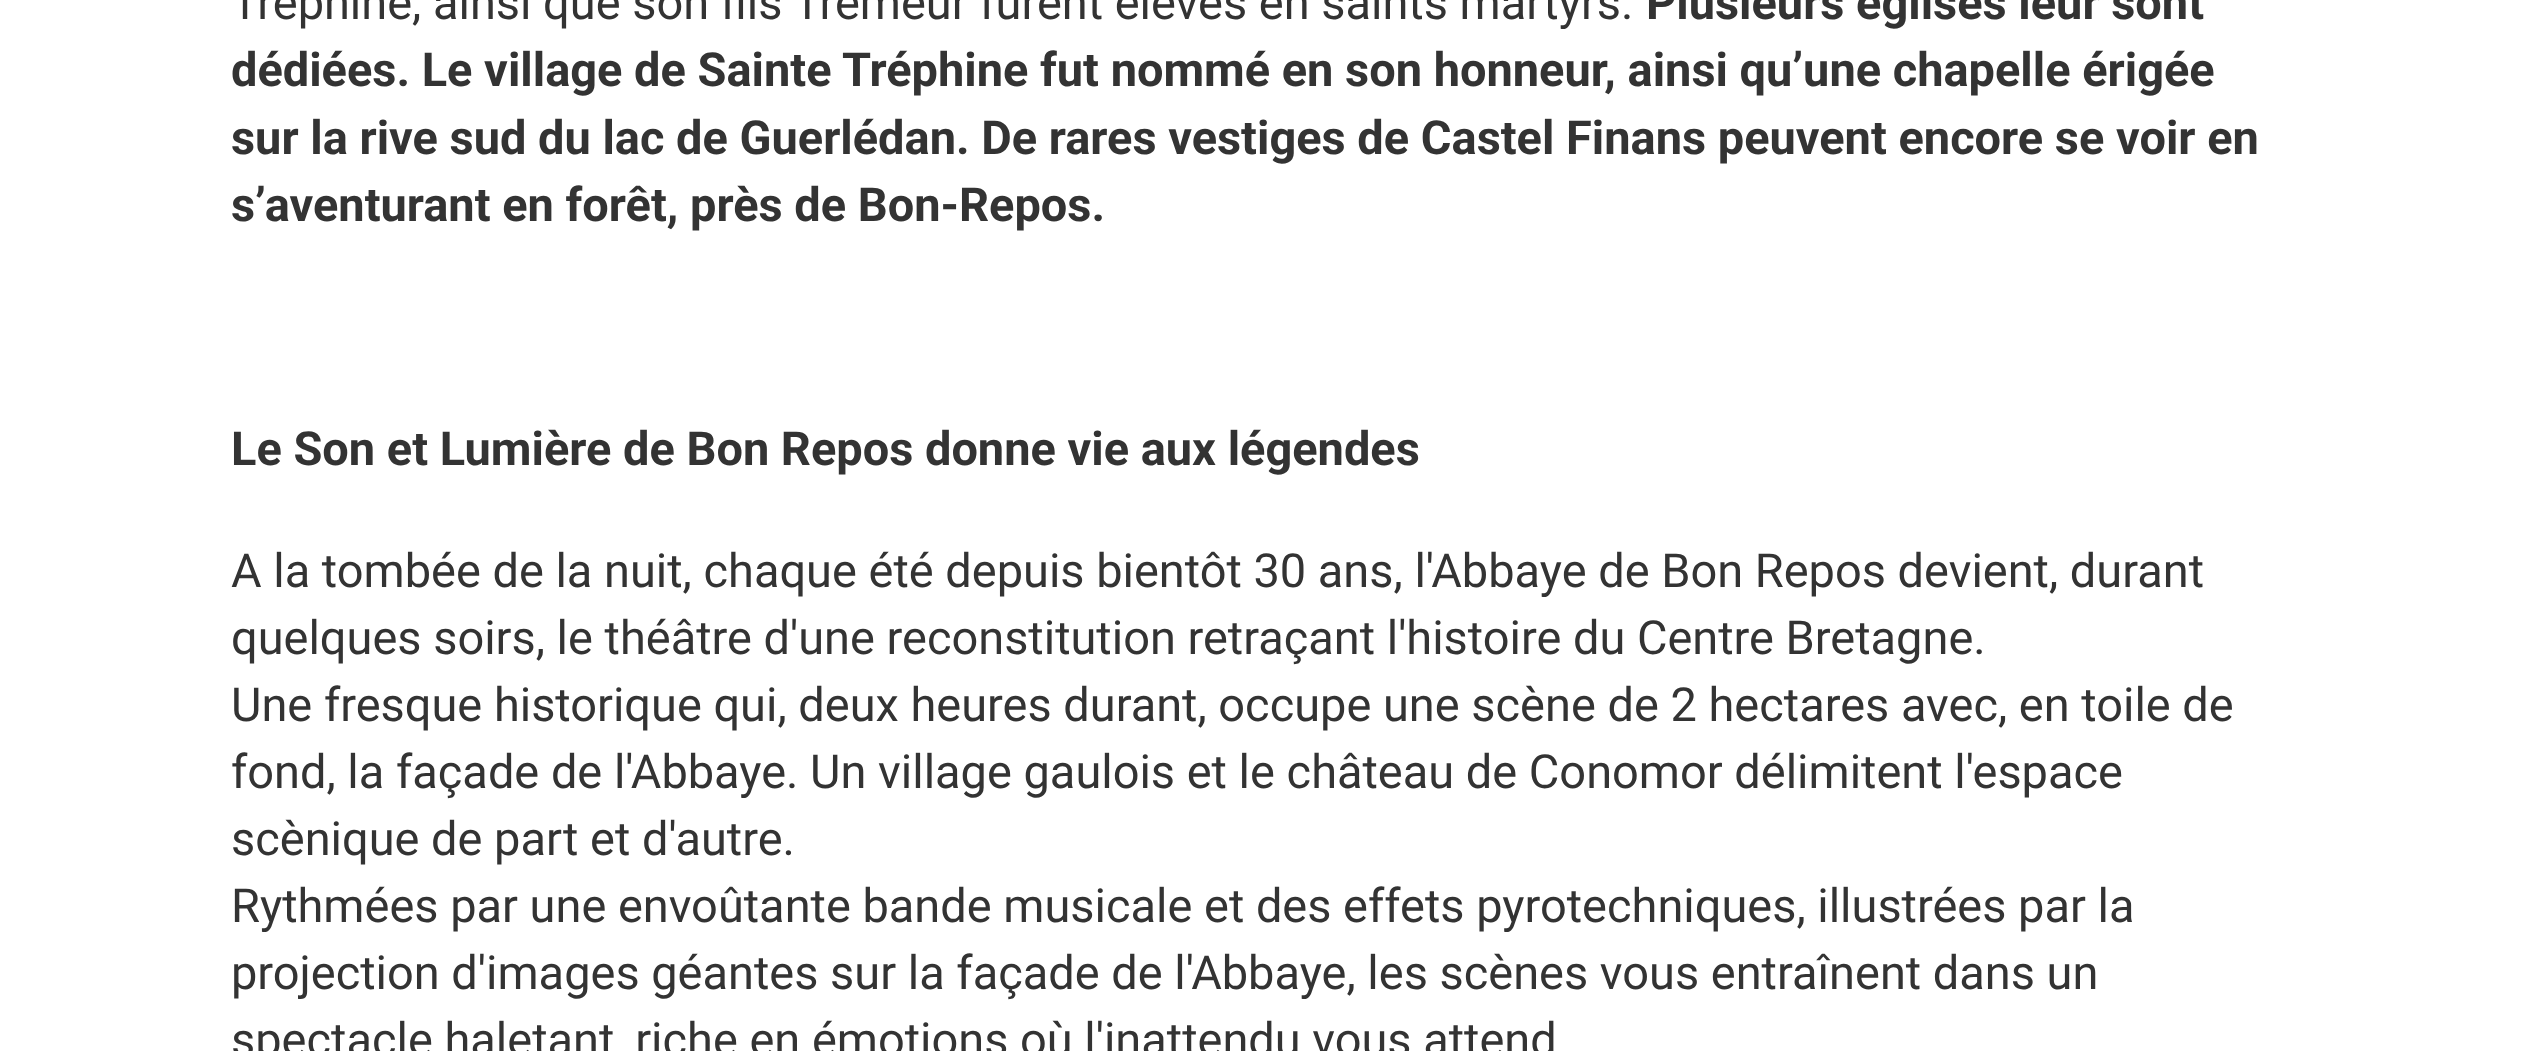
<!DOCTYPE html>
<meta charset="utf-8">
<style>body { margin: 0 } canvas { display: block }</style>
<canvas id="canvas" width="2522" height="1051"></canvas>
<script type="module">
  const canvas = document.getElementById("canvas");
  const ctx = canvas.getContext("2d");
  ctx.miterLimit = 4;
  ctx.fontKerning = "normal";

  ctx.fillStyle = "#ffffff";
  ctx.fillRect(0, 0, 2522, 1051);
  ctx.font = "46.95px Roboto";
  ctx.fillStyle = "#333333";
  ctx.fillText("Tréphine, ainsi que son fils Tremeur furent élevés en saints martyrs.", 231, 19);
  ctx.font = "bold 46.95px Roboto";
  ctx.fillText("Plusieurs églises leur sont", 1646, 19);
  ctx.fillText("dédiées. Le village de Sainte Tréphine fut nommé en son honneur, ainsi qu’une chapelle érigée", 231, 86);
  ctx.fillText("sur la rive sud du lac de Guerlédan. De rares vestiges de Castel Finans peuvent encore se voir en", 231, 154);
  ctx.fillText("s’aventurant en forêt, près de Bon-Repos.", 231, 221);
  ctx.fillText("Le Son et Lumière de Bon Repos donne vie aux légendes", 231, 465);
  ctx.font = "46.95px Roboto";
  ctx.fillText("A la tombée de la nuit, chaque été depuis bientôt 30 ans, l'Abbaye de Bon Repos devient, durant", 231, 587);
  ctx.fillText("quelques soirs, le théâtre d'une reconstitution retraçant l'histoire du Centre Bretagne.", 231, 654);
  ctx.fillText("Une fresque historique qui, deux heures durant, occupe une scène de 2 hectares avec, en toile de", 231, 721);
  ctx.fillText("fond, la façade de l'Abbaye. Un village gaulois et le château de Conomor délimitent l'espace", 231, 788);
  ctx.fillText("scènique de part et d'autre.", 231, 855);
  ctx.fillText("Rythmées par une envoûtante bande musicale et des effets pyrotechniques, illustrées par la", 231, 922);
  ctx.fillText("projection d'images géantes sur la façade de l'Abbaye, les scènes vous entraînent dans un", 231, 989);
  ctx.fillText("spectacle haletant, riche en émotions où l'inattendu vous attend", 231, 1056);
</script>
